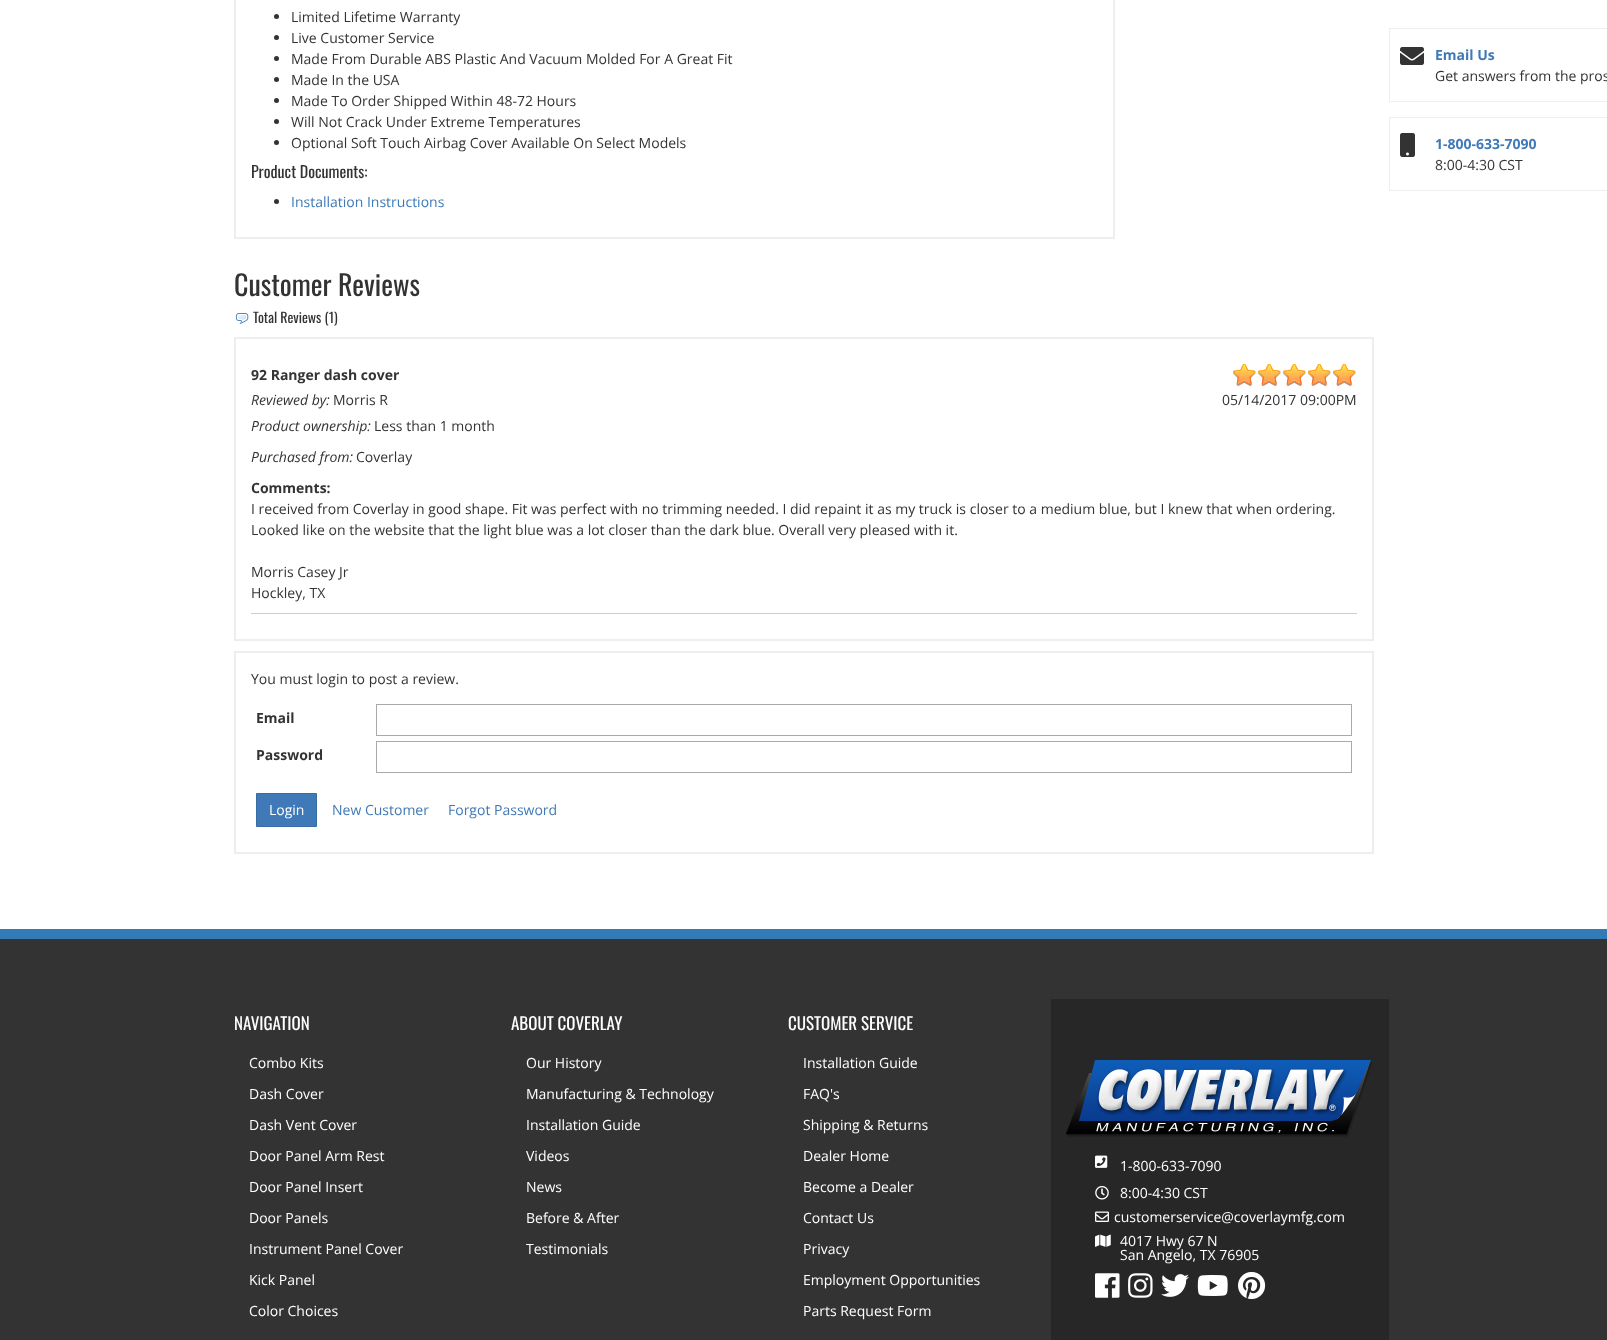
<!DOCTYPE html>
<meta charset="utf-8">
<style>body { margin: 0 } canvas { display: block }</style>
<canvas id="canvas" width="1607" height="1340"></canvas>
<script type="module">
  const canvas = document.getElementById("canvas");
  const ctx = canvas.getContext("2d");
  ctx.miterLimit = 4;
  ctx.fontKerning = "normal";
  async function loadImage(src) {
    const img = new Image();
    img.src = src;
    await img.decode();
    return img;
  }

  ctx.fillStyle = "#ffffff";
  ctx.fillRect(0, 0, 1607, 1340);
  ctx.fillStyle = "#eeeeee";
  ctx.fillRect(1113, 0, 2, 239);
  ctx.fillRect(234, 237, 881, 2);
  ctx.fillRect(234, 0, 2, 239);
  ctx.fillStyle = "#333333";
  ctx.beginPath();
  ctx.arc(276.5, 16.5, 2.5, 0, Math.PI * 2);
  ctx.fill();
  ctx.font = "14px Open Sans";
  ctx.fillText("Limited Lifetime Warranty", 291, 22);
  ctx.beginPath();
  ctx.arc(276.5, 37.5, 2.5, 0, Math.PI * 2);
  ctx.fill();
  ctx.fillText("Live Customer Service", 291, 43);
  ctx.beginPath();
  ctx.arc(276.5, 58.5, 2.5, 0, Math.PI * 2);
  ctx.fill();
  ctx.fillText("Made From Durable ABS Plastic And Vacuum Molded For A Great Fit", 291, 64);
  ctx.beginPath();
  ctx.arc(276.5, 79.5, 2.5, 0, Math.PI * 2);
  ctx.fill();
  ctx.fillText("Made In the USA", 291, 85);
  ctx.beginPath();
  ctx.arc(276.5, 100.5, 2.5, 0, Math.PI * 2);
  ctx.fill();
  ctx.fillText("Made To Order Shipped Within 48-72 Hours", 291, 106);
  ctx.beginPath();
  ctx.arc(276.5, 121.5, 2.5, 0, Math.PI * 2);
  ctx.fill();
  ctx.fillText("Will Not Crack Under Extreme Temperatures", 291, 127);
  ctx.beginPath();
  ctx.arc(276.5, 142.5, 2.5, 0, Math.PI * 2);
  ctx.fill();
  ctx.fillText("Optional Soft Touch Airbag Cover Available On Select Models", 291, 148);
  ctx.font = "16px Oswald";
  ctx.fillText("Product Documents:", 251, 178);
  ctx.beginPath();
  ctx.arc(276.5, 201.5, 2.5, 0, Math.PI * 2);
  ctx.fill();
  ctx.font = "14px Open Sans";
  ctx.fillStyle = "#3f79b7";
  ctx.fillText("Installation Instructions", 291, 207);
  ctx.font = "28px Oswald";
  ctx.fillStyle = "#333333";
  ctx.fillText("Customer Reviews", 234, 296);
  ctx.drawImage(await loadImage("img1.png"), 235, 313, 14, 11);
  ctx.font = "14px Oswald";
  ctx.fillText("Total Reviews (1)", 253, 323);
  ctx.strokeStyle = "#eeeeee";
  ctx.lineWidth = 2;
  ctx.strokeRect(235, 338, 1138, 302);
  ctx.fillStyle = "#cccccc";
  ctx.fillRect(251, 613, 1106, 1);
  ctx.font = "bold 14px Open Sans";
  ctx.fillStyle = "#333333";
  ctx.fillText("92 Ranger dash cover", 251, 380);
  ctx.drawImage(await loadImage("img2.png"), 1233, 364, 123, 22);
  ctx.drawImage(await loadImage("img3.png"), 1233, 364, 123, 21);
  ctx.font = "italic 14px Open Sans";
  ctx.fillText("Reviewed by:", 251, 405);
  ctx.font = "14px Open Sans";
  ctx.fillText("Morris R", 333, 405);
  ctx.fillText("05/14/2017 09:00PM", 1222, 405);
  ctx.font = "italic 14px Open Sans";
  ctx.fillText("Product ownership:", 251, 431);
  ctx.font = "14px Open Sans";
  ctx.fillText("Less than 1 month", 374, 431);
  ctx.font = "italic 14px Open Sans";
  ctx.fillText("Purchased from:", 251, 462);
  ctx.font = "14px Open Sans";
  ctx.fillText("Coverlay", 356, 462);
  ctx.font = "bold 14px Open Sans";
  ctx.fillText("Comments:", 251, 493);
  ctx.font = "14px Open Sans";
  ctx.fillText("I received from Coverlay in good shape. Fit was perfect with no trimming needed. I did repaint it as my truck is closer to a medium blue, but I knew that when ordering.", 251, 514);
  ctx.fillText("Looked like on the website that the light blue was a lot closer than the dark blue. Overall very pleased with it.", 251, 535);
  ctx.fillText("Morris Casey Jr", 251, 577);
  ctx.fillText("Hockley, TX", 251, 598);
  ctx.strokeRect(235, 652, 1138, 201);
  ctx.fillText("You must login to post a review.", 251, 684);
  ctx.font = "bold 14px Open Sans";
  ctx.fillText("Email", 256, 723);
  ctx.strokeStyle = "#aaaaaa";
  ctx.lineWidth = 1;
  ctx.strokeRect(376.5, 704.5, 975, 31);
  ctx.fillText("Password", 256, 760);
  ctx.strokeRect(376.5, 741.5, 975, 31);
  ctx.fillStyle = "#3f79b7";
  ctx.beginPath();
  ctx.rect(256.5, 793.5, 60, 33);
  ctx.fill();
  ctx.strokeStyle = "#386ca4";
  ctx.stroke();
  ctx.font = "14px Open Sans";
  ctx.fillStyle = "#ffffff";
  ctx.fillText("Login", 269, 815);
  ctx.fillStyle = "#3f79b7";
  ctx.fillText("New Customer", 332, 815);
  ctx.fillText("Forgot Password", 448, 815);
  ctx.strokeStyle = "#eeeeee";
  ctx.strokeRect(1389.5, 28.5, 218, 73);
  ctx.drawImage(await loadImage("img4.png"), 1400, 47, 24, 18);
  ctx.font = "bold 14px Open Sans";
  ctx.fillText("Email Us", 1435, 60);
  ctx.font = "14px Open Sans";
  ctx.fillStyle = "#333333";
  ctx.fillText("Get answers from the pros", 1435, 81);
  ctx.strokeRect(1389.5, 117.5, 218, 73);
  ctx.drawImage(await loadImage("img5.png"), 1400, 133, 15, 24);
  ctx.font = "bold 14px Open Sans";
  ctx.fillStyle = "#3f79b7";
  ctx.fillText("1-800-633-7090", 1435, 149);
  ctx.font = "14px Open Sans";
  ctx.fillStyle = "#333333";
  ctx.fillText("8:00-4:30 CST", 1435, 170);
  ctx.fillRect(0, 939, 1607, 401);
  ctx.fillStyle = "#337ab7";
  ctx.fillRect(0, 929, 1607, 10);
  ctx.font = "17px Oswald";
  ctx.fillStyle = "#ffffff";
  ctx.fillText("NAVIGATION", 234, 1030);
  ctx.font = "14px Open Sans";
  ctx.fillText("Combo Kits", 249, 1068);
  ctx.fillText("Dash Cover", 249, 1099);
  ctx.fillText("Dash Vent Cover", 249, 1130);
  ctx.fillText("Door Panel Arm Rest", 249, 1161);
  ctx.fillText("Door Panel Insert", 249, 1192);
  ctx.fillText("Door Panels", 249, 1223);
  ctx.fillText("Instrument Panel Cover", 249, 1254);
  ctx.fillText("Kick Panel", 249, 1285);
  ctx.fillText("Color Choices", 249, 1316);
  ctx.font = "17px Oswald";
  ctx.fillText("ABOUT COVERLAY", 511, 1030);
  ctx.font = "14px Open Sans";
  ctx.fillText("Our History", 526, 1068);
  ctx.fillText("Manufacturing & Technology", 526, 1099);
  ctx.fillText("Installation Guide", 526, 1130);
  ctx.fillText("Videos", 526, 1161);
  ctx.fillText("News", 526, 1192);
  ctx.fillText("Before & After", 526, 1223);
  ctx.fillText("Testimonials", 526, 1254);
  ctx.font = "17px Oswald";
  ctx.fillText("CUSTOMER SERVICE", 788, 1030);
  ctx.font = "14px Open Sans";
  ctx.fillText("Installation Guide", 803, 1068);
  ctx.fillText("FAQ's", 803, 1099);
  ctx.fillText("Shipping & Returns", 803, 1130);
  ctx.fillText("Dealer Home", 803, 1161);
  ctx.fillText("Become a Dealer", 803, 1192);
  ctx.fillText("Contact Us", 803, 1223);
  ctx.fillText("Privacy", 803, 1254);
  ctx.fillText("Employment Opportunities", 803, 1285);
  ctx.fillText("Parts Request Form", 803, 1316);
  ctx.fillStyle = "#272727";
  ctx.fillRect(1051, 999, 338, 341);
  ctx.drawImage(await loadImage("img6.png"), 1066, 1060, 306, 77);
  ctx.drawImage(await loadImage("img7.png"), 1095, 1155, 13, 13);
  ctx.fillStyle = "#ffffff";
  ctx.fillText("1-800-633-7090", 1120, 1171);
  ctx.drawImage(await loadImage("img8.png"), 1095, 1186, 14, 14);
  ctx.fillText("8:00-4:30 CST", 1120, 1198);
  ctx.drawImage(await loadImage("img9.png"), 1095, 1211, 14, 11);
  ctx.fillText("customerservice@coverlaymfg.com", 1114, 1222);
  ctx.drawImage(await loadImage("img10.png"), 1095, 1234, 16, 13);
  ctx.fillText("4017 Hwy 67 N", 1120, 1246);
  ctx.fillText("San Angelo, TX 76905", 1120, 1260);
  ctx.drawImage(await loadImage("img11.png"), 1095, 1273, 25, 25);
  ctx.drawImage(await loadImage("img12.png"), 1128, 1273, 25, 25);
  ctx.drawImage(await loadImage("img13.png"), 1161, 1274, 28, 23);
  ctx.drawImage(await loadImage("img14.png"), 1197, 1275, 31, 21);
  ctx.drawImage(await loadImage("img15.png"), 1238, 1271, 28, 29);
</script>
